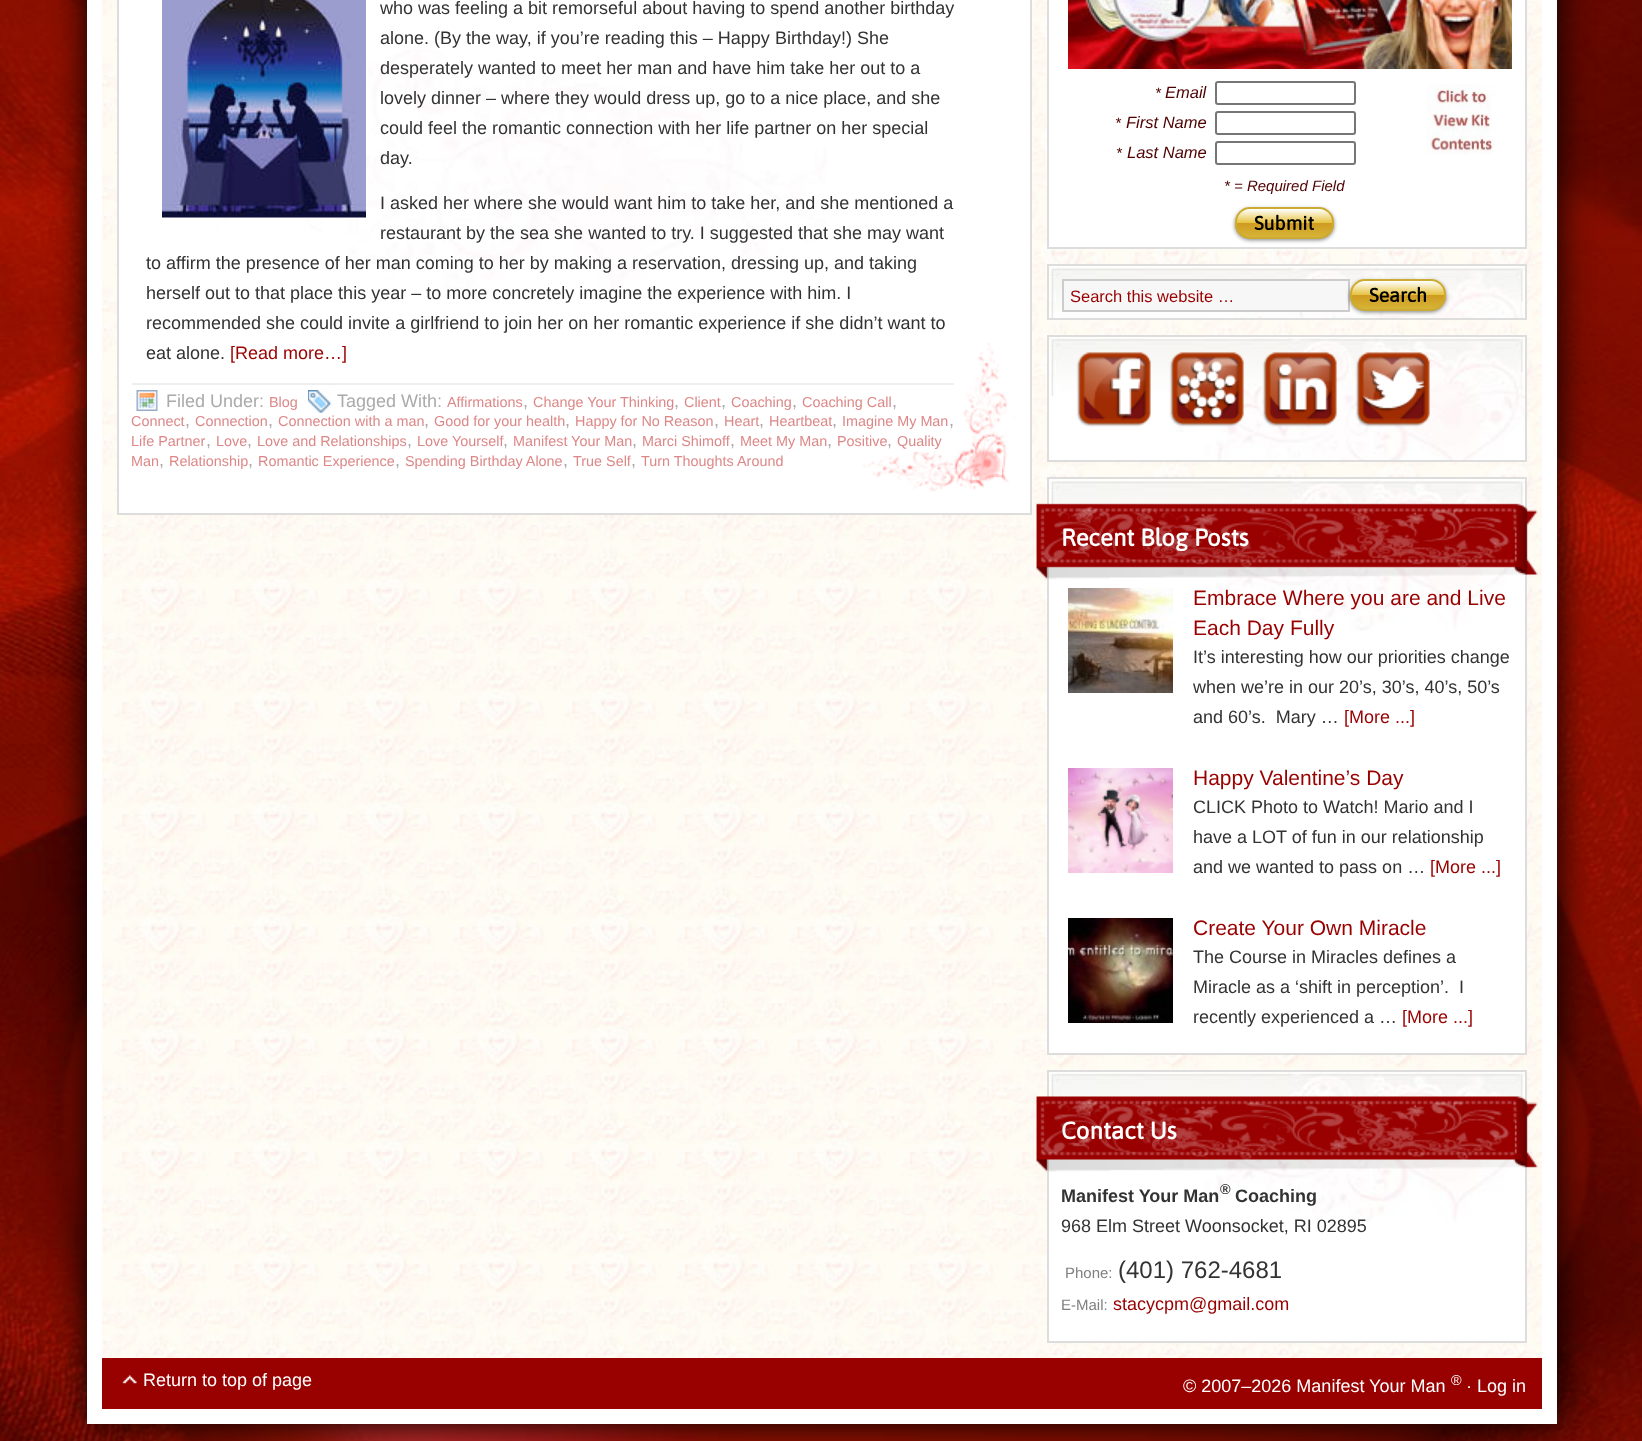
<!DOCTYPE html>
<meta charset="utf-8">
<style>body { margin: 0 } canvas { display: block }</style>
<canvas id="canvas" width="1642" height="1441"></canvas>
<script type="module">
  const canvas = document.getElementById("canvas");
  const ctx = canvas.getContext("2d");
  ctx.miterLimit = 4;
  ctx.fontKerning = "normal";
  async function loadImage(src) {
    const img = new Image();
    img.src = src;
    await img.decode();
    return img;
  }
  let gradient;

  ctx.fillStyle = "#ffffff";
  ctx.fillRect(0, 0, 1642, 1441);
  ctx.drawImage(await loadImage("img1.png"), 0, 0, 1642, 1441);
  ctx.fillStyle = "#000000";
  ctx.filter = "blur(17px)";
  ctx.beginPath();
  ctx.rect(87, -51, 1470, 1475);
  ctx.fill();
  ctx.filter = "none";
  ctx.drawImage(await loadImage("img2.png"), 102, 0, 1440, 1358);
  ctx.strokeStyle = "#ffffff";
  ctx.lineWidth = 15;
  ctx.strokeRect(94.5, -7.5, 1455, 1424);
  ctx.fillStyle = "#ffffff";
  ctx.fillRect(119, 0, 911, 513);
  ctx.drawImage(await loadImage("img3.png"), 166, 50, 661, 242);
  ctx.strokeStyle = "#dddddd";
  ctx.lineWidth = 2;
  ctx.strokeRect(118, -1, 913, 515);
  ctx.drawImage(await loadImage("img4.png"), 862, 342, 155, 150);
  ctx.drawImage(await loadImage("img5.png"), 162, 0, 204, 218);
  ctx.font = "18px Liberation Sans";
  ctx.fillStyle = "#333333";
  ctx.fillText("who was feeling a bit remorseful about having to spend another birthday", 380, 14);
  ctx.fillText("alone. (By the way, if you’re reading this – Happy Birthday!) She", 380, 44);
  ctx.fillText("desperately wanted to meet her man and have him take her out to a", 380, 74);
  ctx.fillText("lovely dinner – where they would dress up, go to a nice place, and she", 380, 104);
  ctx.fillText("could feel the romantic connection with her life partner on her special", 380, 134);
  ctx.fillText("day.", 380, 164);
  ctx.fillText("I asked her where she would want him to take her, and she mentioned a", 380, 209);
  ctx.fillText("restaurant by the sea she wanted to try. I suggested that she may want", 380, 239);
  ctx.fillText("to affirm the presence of her man coming to her by making a reservation, dressing up, and taking", 146, 269);
  ctx.fillText("herself out to that place this year – to more concretely imagine the experience with him. I", 146, 299);
  ctx.fillText("recommended she could invite a girlfriend to join her on her romantic experience if she didn’t want to", 146, 329);
  ctx.fillText("eat alone.", 146, 359);
  ctx.fillStyle = "#990000";
  ctx.fillText("[Read more…]", 230, 359);
  ctx.fillStyle = "#eeeeee";
  ctx.fillRect(132, 383, 822, 2);
  ctx.drawImage(await loadImage("img6.png"), 136, 390, 22, 21);
  ctx.fillStyle = "#aaaaaa";
  ctx.fillText("Filed Under:", 166, 407);
  ctx.font = "14.4px Liberation Sans";
  ctx.fillStyle = "#dd8888";
  ctx.fillText("Blog", 269, 407);
  ctx.drawImage(await loadImage("img7.png"), 308, 390, 24, 23);
  ctx.font = "18px Liberation Sans";
  ctx.fillStyle = "#aaaaaa";
  ctx.fillText("Tagged With:", 337, 407);
  ctx.font = "14.4px Liberation Sans";
  ctx.fillStyle = "#dd8888";
  ctx.fillText("Affirmations", 447, 407);
  ctx.font = "18px Liberation Sans";
  ctx.fillStyle = "#aaaaaa";
  ctx.fillText(",", 523, 407);
  ctx.font = "14.4px Liberation Sans";
  ctx.fillStyle = "#dd8888";
  ctx.fillText("Change Your Thinking", 533, 407);
  ctx.font = "18px Liberation Sans";
  ctx.fillStyle = "#aaaaaa";
  ctx.fillText(",", 674, 407);
  ctx.font = "14.4px Liberation Sans";
  ctx.fillStyle = "#dd8888";
  ctx.fillText("Client", 684, 407);
  ctx.font = "18px Liberation Sans";
  ctx.fillStyle = "#aaaaaa";
  ctx.fillText(",", 721, 407);
  ctx.font = "14.4px Liberation Sans";
  ctx.fillStyle = "#dd8888";
  ctx.fillText("Coaching", 731, 407);
  ctx.font = "18px Liberation Sans";
  ctx.fillStyle = "#aaaaaa";
  ctx.fillText(",", 792, 407);
  ctx.font = "14.4px Liberation Sans";
  ctx.fillStyle = "#dd8888";
  ctx.fillText("Coaching Call", 802, 407);
  ctx.font = "18px Liberation Sans";
  ctx.fillStyle = "#aaaaaa";
  ctx.fillText(",", 892, 407);
  ctx.font = "14.4px Liberation Sans";
  ctx.fillStyle = "#dd8888";
  ctx.fillText("Connect", 131, 426);
  ctx.font = "18px Liberation Sans";
  ctx.fillStyle = "#aaaaaa";
  ctx.fillText(",", 185, 426);
  ctx.font = "14.4px Liberation Sans";
  ctx.fillStyle = "#dd8888";
  ctx.fillText("Connection", 195, 426);
  ctx.font = "18px Liberation Sans";
  ctx.fillStyle = "#aaaaaa";
  ctx.fillText(",", 268, 426);
  ctx.font = "14.4px Liberation Sans";
  ctx.fillStyle = "#dd8888";
  ctx.fillText("Connection with a man", 278, 426);
  ctx.font = "18px Liberation Sans";
  ctx.fillStyle = "#aaaaaa";
  ctx.fillText(",", 424, 426);
  ctx.font = "14.4px Liberation Sans";
  ctx.fillStyle = "#dd8888";
  ctx.fillText("Good for your health", 434, 426);
  ctx.font = "18px Liberation Sans";
  ctx.fillStyle = "#aaaaaa";
  ctx.fillText(",", 565, 426);
  ctx.font = "14.4px Liberation Sans";
  ctx.fillStyle = "#dd8888";
  ctx.fillText("Happy for No Reason", 575, 426);
  ctx.font = "18px Liberation Sans";
  ctx.fillStyle = "#aaaaaa";
  ctx.fillText(",", 714, 426);
  ctx.font = "14.4px Liberation Sans";
  ctx.fillStyle = "#dd8888";
  ctx.fillText("Heart", 724, 426);
  ctx.font = "18px Liberation Sans";
  ctx.fillStyle = "#aaaaaa";
  ctx.fillText(",", 759, 426);
  ctx.font = "14.4px Liberation Sans";
  ctx.fillStyle = "#dd8888";
  ctx.fillText("Heartbeat", 769, 426);
  ctx.font = "18px Liberation Sans";
  ctx.fillStyle = "#aaaaaa";
  ctx.fillText(",", 832, 426);
  ctx.font = "14.4px Liberation Sans";
  ctx.fillStyle = "#dd8888";
  ctx.fillText("Imagine My Man", 842, 426);
  ctx.font = "18px Liberation Sans";
  ctx.fillStyle = "#aaaaaa";
  ctx.fillText(",", 949, 426);
  ctx.font = "14.4px Liberation Sans";
  ctx.fillStyle = "#dd8888";
  ctx.fillText("Life Partner", 131, 446);
  ctx.font = "18px Liberation Sans";
  ctx.fillStyle = "#aaaaaa";
  ctx.fillText(",", 206, 446);
  ctx.font = "14.4px Liberation Sans";
  ctx.fillStyle = "#dd8888";
  ctx.fillText("Love", 216, 446);
  ctx.font = "18px Liberation Sans";
  ctx.fillStyle = "#aaaaaa";
  ctx.fillText(",", 247, 446);
  ctx.font = "14.4px Liberation Sans";
  ctx.fillStyle = "#dd8888";
  ctx.fillText("Love and Relationships", 257, 446);
  ctx.font = "18px Liberation Sans";
  ctx.fillStyle = "#aaaaaa";
  ctx.fillText(",", 407, 446);
  ctx.font = "14.4px Liberation Sans";
  ctx.fillStyle = "#dd8888";
  ctx.fillText("Love Yourself", 417, 446);
  ctx.font = "18px Liberation Sans";
  ctx.fillStyle = "#aaaaaa";
  ctx.fillText(",", 503, 446);
  ctx.font = "14.4px Liberation Sans";
  ctx.fillStyle = "#dd8888";
  ctx.fillText("Manifest Your Man", 513, 446);
  ctx.font = "18px Liberation Sans";
  ctx.fillStyle = "#aaaaaa";
  ctx.fillText(",", 632, 446);
  ctx.font = "14.4px Liberation Sans";
  ctx.fillStyle = "#dd8888";
  ctx.fillText("Marci Shimoff", 642, 446);
  ctx.font = "18px Liberation Sans";
  ctx.fillStyle = "#aaaaaa";
  ctx.fillText(",", 730, 446);
  ctx.font = "14.4px Liberation Sans";
  ctx.fillStyle = "#dd8888";
  ctx.fillText("Meet My Man", 740, 446);
  ctx.font = "18px Liberation Sans";
  ctx.fillStyle = "#aaaaaa";
  ctx.fillText(",", 827, 446);
  ctx.font = "14.4px Liberation Sans";
  ctx.fillStyle = "#dd8888";
  ctx.fillText("Positive", 837, 446);
  ctx.font = "18px Liberation Sans";
  ctx.fillStyle = "#aaaaaa";
  ctx.fillText(",", 887, 446);
  ctx.fillStyle = "#ffffff";
  ctx.fillRect(913, 447, 22, 5);
  ctx.font = "14.4px Liberation Sans";
  ctx.fillStyle = "#dd8888";
  ctx.fillText("Quality", 897, 446);
  ctx.fillText("Man", 131, 466);
  ctx.font = "18px Liberation Sans";
  ctx.fillStyle = "#aaaaaa";
  ctx.fillText(",", 159, 466);
  ctx.font = "14.4px Liberation Sans";
  ctx.fillStyle = "#dd8888";
  ctx.fillText("Relationship", 169, 466);
  ctx.font = "18px Liberation Sans";
  ctx.fillStyle = "#aaaaaa";
  ctx.fillText(",", 248, 466);
  ctx.font = "14.4px Liberation Sans";
  ctx.fillStyle = "#dd8888";
  ctx.fillText("Romantic Experience", 258, 466);
  ctx.font = "18px Liberation Sans";
  ctx.fillStyle = "#aaaaaa";
  ctx.fillText(",", 395, 466);
  ctx.font = "14.4px Liberation Sans";
  ctx.fillStyle = "#dd8888";
  ctx.fillText("Spending Birthday Alone", 405, 466);
  ctx.font = "18px Liberation Sans";
  ctx.fillStyle = "#aaaaaa";
  ctx.fillText(",", 563, 466);
  ctx.font = "14.4px Liberation Sans";
  ctx.fillStyle = "#dd8888";
  ctx.fillText("True Self", 573, 466);
  ctx.font = "18px Liberation Sans";
  ctx.fillStyle = "#aaaaaa";
  ctx.fillText(",", 631, 466);
  ctx.font = "14.4px Liberation Sans";
  ctx.fillStyle = "#dd8888";
  ctx.fillText("Turn Thoughts Around", 641, 466);
  ctx.fillStyle = "#ffffff";
  ctx.beginPath();
  ctx.rect(1048, -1, 478, 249);
  ctx.fill();
  ctx.stroke();
  ctx.drawImage(await loadImage("img8.png"), 1068, 0, 444, 69);
  ctx.font = "italic 15px Liberation Sans";
  ctx.fillStyle = "#4f0000";
  ctx.fillText("*", 1155, 98);
  ctx.font = "italic 16.5px Liberation Sans";
  ctx.fillText("Email", 1165, 98);
  ctx.beginPath();
  ctx.roundRect(1216, 82, 139, 22, 2);
  ctx.strokeStyle = "#767676";
  ctx.stroke();
  ctx.font = "italic 15px Liberation Sans";
  ctx.fillText("*", 1115, 128);
  ctx.font = "italic 16.5px Liberation Sans";
  ctx.fillText("First Name", 1126, 128);
  ctx.beginPath();
  ctx.roundRect(1216, 112, 139, 22, 2);
  ctx.stroke();
  ctx.font = "italic 15px Liberation Sans";
  ctx.fillText("*", 1116, 158);
  ctx.font = "italic 16.5px Liberation Sans";
  ctx.fillText("Last Name", 1127, 158);
  ctx.beginPath();
  ctx.roundRect(1216, 142, 139, 22, 2);
  ctx.stroke();
  ctx.font = "italic 15px Liberation Sans";
  ctx.fillText("* = Required Field", 1224, 191);
  ctx.fillStyle = "rgba(0, 0, 0, 0.5)";
  ctx.filter = "blur(2px)";
  ctx.beginPath();
  ctx.roundRect(1235, 209, 99, 31, 15);
  ctx.fill();
  ctx.filter = "none";
  ctx.save();
  ctx.beginPath();
  ctx.roundRect(1235, 207, 99, 32, 15);
  ctx.clip();
  gradient = ctx.createLinearGradient(1236, 209, 1236, 237);
  gradient.addColorStop(0, "#ffffff");
  gradient.addColorStop(0.5, "#e6c23e");
  gradient.addColorStop(0.5, "#cf9a1f");
  gradient.addColorStop(1, "#d6b437");
  ctx.fillStyle = gradient;
  ctx.fillRect(1235, 209, 99, 28);
  ctx.restore();
  ctx.beginPath();
  ctx.roundRect(1236, 208, 97, 30, 14);
  ctx.strokeStyle = "#ccab33";
  ctx.stroke();
  ctx.font = "bold 19.5px Asap";
  ctx.fillStyle = "#000000";
  ctx.fillText("Submit", 1254, 230);
  ctx.drawImage(await loadImage("img9.png"), 1426, 84, 70, 71);
  ctx.drawImage(await loadImage("img10.png"), 1049, 266, 476, 52);
  ctx.strokeStyle = "#dddddd";
  ctx.strokeRect(1048, 265, 478, 54);
  ctx.fillStyle = "#f7f7f7";
  ctx.beginPath();
  ctx.rect(1063, 280, 286, 31);
  ctx.fill();
  ctx.strokeStyle = "#cccccc";
  ctx.stroke();
  ctx.font = "16.5px Liberation Sans";
  ctx.fillStyle = "#990000";
  ctx.fillText("Search this website …", 1070, 302);
  ctx.fillStyle = "rgba(0, 0, 0, 0.5)";
  ctx.filter = "blur(2px)";
  ctx.beginPath();
  ctx.roundRect(1350, 281, 96, 31, 15);
  ctx.fill();
  ctx.filter = "none";
  ctx.save();
  ctx.beginPath();
  ctx.roundRect(1350, 279, 96, 32, 15);
  ctx.clip();
  gradient = ctx.createLinearGradient(1352, 281, 1352, 309);
  gradient.addColorStop(0, "#ffffff");
  gradient.addColorStop(0.5, "#e6c23e");
  gradient.addColorStop(0.5, "#cf9a1f");
  gradient.addColorStop(1, "#d6b437");
  ctx.fillStyle = gradient;
  ctx.fillRect(1350, 281, 96, 28);
  ctx.restore();
  ctx.beginPath();
  ctx.roundRect(1351, 280, 94, 30, 14);
  ctx.strokeStyle = "#ccab33";
  ctx.stroke();
  ctx.font = "bold 19.5px Asap";
  ctx.fillStyle = "#000000";
  ctx.fillText("Search", 1369, 302);
  ctx.drawImage(await loadImage("img11.png"), 1049, 337, 476, 123);
  ctx.strokeStyle = "#dddddd";
  ctx.strokeRect(1048, 336, 478, 125);
  ctx.drawImage(await loadImage("img12.png"), 1076, 352, 75, 75);
  ctx.drawImage(await loadImage("img13.png"), 1169, 352, 75, 75);
  ctx.drawImage(await loadImage("img14.png"), 1262, 352, 75, 75);
  ctx.drawImage(await loadImage("img15.png"), 1355, 352, 75, 75);
  ctx.fillStyle = "#ffffff";
  ctx.fillRect(1049, 631, 476, 422);
  ctx.drawImage(await loadImage("img16.png"), 1049, 479, 476, 152);
  ctx.strokeRect(1048, 478, 478, 576);
  ctx.drawImage(await loadImage("img17.png"), 1036, 503, 502, 77);
  ctx.font = "bold 24px Asap";
  ctx.fillText("Recent Blog Posts", 1061, 546);
  ctx.drawImage(await loadImage("img18.png"), 1068, 588, 105, 105);
  ctx.font = "21px Liberation Sans";
  ctx.fillStyle = "#990000";
  ctx.fillText("Embrace Where you are and Live", 1193, 605);
  ctx.fillText("Each Day Fully", 1193, 635);
  ctx.font = "18px Liberation Sans";
  ctx.fillStyle = "#333333";
  ctx.fillText("It’s interesting how our priorities change", 1193, 663);
  ctx.fillText("when we’re in our 20’s, 30’s, 40’s, 50’s", 1193, 693);
  ctx.fillText("and 60’s.  Mary …", 1193, 723);
  ctx.fillStyle = "#990000";
  ctx.fillText("[More ...]", 1344, 723);
  ctx.drawImage(await loadImage("img19.png"), 1068, 768, 105, 105);
  ctx.font = "21px Liberation Sans";
  ctx.fillText("Happy Valentine’s Day", 1193, 785);
  ctx.font = "18px Liberation Sans";
  ctx.fillStyle = "#333333";
  ctx.fillText("CLICK Photo to Watch! Mario and I", 1193, 813);
  ctx.fillText("have a LOT of fun in our relationship", 1193, 843);
  ctx.fillText("and we wanted to pass on …", 1193, 873);
  ctx.fillStyle = "#990000";
  ctx.fillText("[More ...]", 1430, 873);
  ctx.drawImage(await loadImage("img20.png"), 1068, 918, 105, 105);
  ctx.font = "21px Liberation Sans";
  ctx.fillText("Create Your Own Miracle", 1193, 935);
  ctx.font = "18px Liberation Sans";
  ctx.fillStyle = "#333333";
  ctx.fillText("The Course in Miracles defines a", 1193, 963);
  ctx.fillText("Miracle as a ‘shift in perception’.  I", 1193, 993);
  ctx.fillText("recently experienced a …", 1193, 1023);
  ctx.fillStyle = "#990000";
  ctx.fillText("[More ...]", 1402, 1023);
  ctx.fillStyle = "#ffffff";
  ctx.fillRect(1049, 1223, 476, 118);
  ctx.drawImage(await loadImage("img21.png"), 1049, 1072, 476, 151);
  ctx.strokeRect(1048, 1071, 478, 271);
  ctx.drawImage(await loadImage("img22.png"), 1036, 1096, 502, 76);
  ctx.font = "bold 24px Asap";
  ctx.fillText("Contact Us", 1061, 1139);
  ctx.font = "bold 18px Liberation Sans";
  ctx.fillStyle = "#333333";
  ctx.fillText("Manifest Your Man", 1061, 1202);
  ctx.font = "bold 14.4px Liberation Sans";
  ctx.fillText("®", 1220, 1194);
  ctx.font = "bold 18px Liberation Sans";
  ctx.fillText("Coaching", 1235, 1202);
  ctx.font = "18px Liberation Sans";
  ctx.fillText("968 Elm Street Woonsocket, RI 02895", 1061, 1232);
  ctx.font = "15px Liberation Sans";
  ctx.fillStyle = "#808080";
  ctx.fillText("Phone:", 1065, 1278);
  ctx.font = "24px Liberation Sans";
  ctx.fillStyle = "#333333";
  ctx.fillText("(401) 762-4681", 1118, 1278);
  ctx.font = "15px Liberation Sans";
  ctx.fillStyle = "#808080";
  ctx.fillText("E-Mail:", 1061, 1310);
  ctx.font = "18px Liberation Sans";
  ctx.fillStyle = "#990000";
  ctx.fillText("stacycpm@gmail.com", 1113, 1310);
  ctx.fillRect(102, 1358, 1440, 51);
  ctx.drawImage(await loadImage("img23.png"), 122, 1375, 15, 9);
  ctx.fillStyle = "#ffffff";
  ctx.fillText("Return to top of page", 143, 1386);
  ctx.fillText("© 2007–2026 Manifest Your Man", 1183, 1392);
  ctx.font = "14.4px Liberation Sans";
  ctx.fillText("®", 1451, 1385);
  ctx.font = "18px Liberation Sans";
  ctx.fillText("· Log in", 1466, 1392);
</script>
